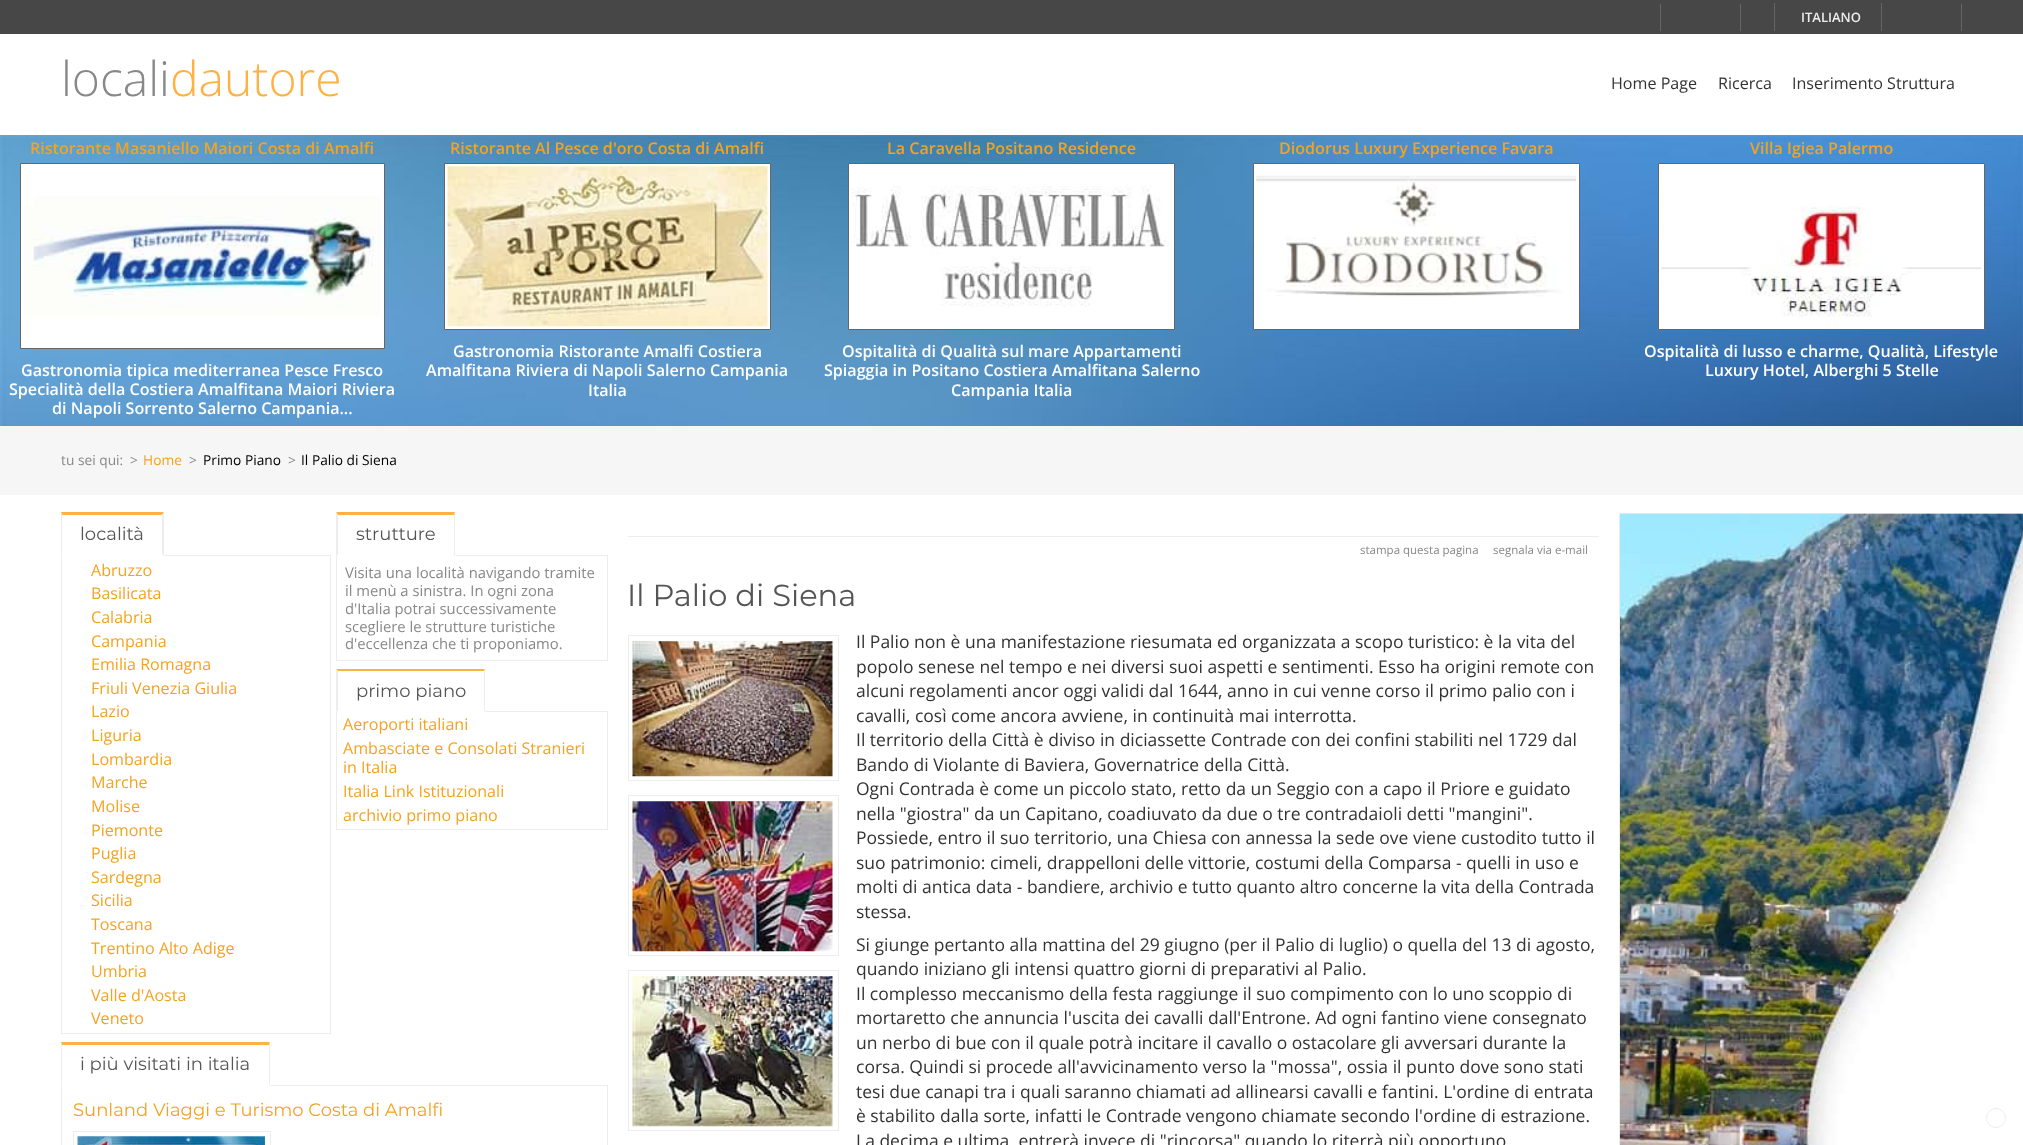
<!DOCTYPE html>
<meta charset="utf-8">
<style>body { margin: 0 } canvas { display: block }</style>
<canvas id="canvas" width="2023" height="1145"></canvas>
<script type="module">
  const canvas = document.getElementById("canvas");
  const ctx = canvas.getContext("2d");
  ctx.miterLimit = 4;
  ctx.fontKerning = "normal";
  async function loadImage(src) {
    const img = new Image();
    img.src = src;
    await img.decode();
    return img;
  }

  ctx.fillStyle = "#ffffff";
  ctx.fillRect(0, 0, 2023, 1145);
  ctx.fillStyle = "#474747";
  ctx.fillRect(0, 0, 2023, 34);
  ctx.fillStyle = "#666666";
  ctx.fillRect(1740, 4, 1, 27);
  ctx.fillRect(1660, 4, 1, 27);
  ctx.fillRect(1881, 3, 1, 28);
  ctx.fillRect(1774, 3, 1, 28);
  ctx.font = "600 13px Open Sans";
  ctx.fillStyle = "#ededed";
  ctx.fillText("ITALIANO", 1801, 22);
  ctx.fillStyle = "#666666";
  ctx.fillRect(1961, 4, 1, 27);
  ctx.font = "300 48px Open Sans";
  ctx.fillStyle = "#888888";
  ctx.fillText("locali", 61, 96);
  ctx.fillStyle = "#ffb141";
  ctx.fillText("dautore", 170, 96);
  ctx.font = "16.1px Open Sans";
  ctx.fillStyle = "#333333";
  ctx.fillText("Home Page", 1611, 89);
  ctx.fillText("Ricerca", 1718, 89);
  ctx.fillText("Inserimento Struttura", 1792, 89);
  ctx.drawImage(await loadImage("img1.png"), 0, 135, 2023, 291);
  ctx.font = "600 16.1px Open Sans";
  ctx.fillStyle = "#f4a321";
  ctx.fillText("Ristorante Masaniello Maiori Costa di Amalfi", 30, 154);
  ctx.fillStyle = "#ffffff";
  ctx.beginPath();
  ctx.rect(20.5, 163.5, 364, 185);
  ctx.fill();
  ctx.strokeStyle = "#666666";
  ctx.stroke();
  ctx.drawImage(await loadImage("img2.png"), 24, 196, 357, 121);
  ctx.fillText("Gastronomia tipica mediterranea Pesce Fresco", 21, 376);
  ctx.fillText("Specialità della Costiera Amalfitana Maiori Riviera", 9, 395);
  ctx.fillText("di Napoli Sorrento Salerno Campania...", 52, 414);
  ctx.fillStyle = "#f4a321";
  ctx.fillText("Ristorante Al Pesce d'oro Costa di Amalfi", 450, 154);
  ctx.fillStyle = "#ffffff";
  ctx.beginPath();
  ctx.rect(444.5, 163.5, 326, 166);
  ctx.fill();
  ctx.stroke();
  ctx.drawImage(await loadImage("img3.png"), 447, 166, 321, 161);
  ctx.fillText("Gastronomia Ristorante Amalfi Costiera", 453, 357);
  ctx.fillText("Amalfitana Riviera di Napoli Salerno Campania", 426, 376);
  ctx.fillText("Italia", 588, 396);
  ctx.fillStyle = "#f4a321";
  ctx.fillText("La Caravella Positano Residence", 887, 154);
  ctx.fillStyle = "#ffffff";
  ctx.beginPath();
  ctx.rect(848.5, 163.5, 326, 166);
  ctx.fill();
  ctx.stroke();
  ctx.drawImage(await loadImage("img4.png"), 851, 186, 319, 121);
  ctx.fillText("Ospitalità di Qualità sul mare Appartamenti", 842, 357);
  ctx.fillText("Spiaggia in Positano Costiera Amalfitana Salerno", 824, 376);
  ctx.fillText("Campania Italia", 951, 396);
  ctx.fillStyle = "#f4a321";
  ctx.fillText("Diodorus Luxury Experience Favara", 1279, 154);
  ctx.fillStyle = "#ffffff";
  ctx.beginPath();
  ctx.rect(1253.5, 163.5, 326, 166);
  ctx.fill();
  ctx.stroke();
  ctx.drawImage(await loadImage("img5.png"), 1256, 175, 321, 122);
  ctx.fillStyle = "#f4a321";
  ctx.fillText("Villa Igiea Palermo", 1750, 154);
  ctx.fillStyle = "#ffffff";
  ctx.beginPath();
  ctx.rect(1658.5, 163.5, 326, 166);
  ctx.fill();
  ctx.stroke();
  ctx.drawImage(await loadImage("img6.png"), 1661, 206, 321, 120);
  ctx.fillText("Ospitalità di lusso e charme, Qualità, Lifestyle", 1644, 357);
  ctx.fillText("Luxury Hotel, Alberghi 5 Stelle", 1705, 376);
  ctx.fillStyle = "#f6f6f6";
  ctx.fillRect(0, 426, 2023, 69);
  ctx.font = "13.75px Open Sans";
  ctx.fillStyle = "#888888";
  ctx.fillText("tu sei qui:", 61, 465);
  ctx.fillText(">", 130, 465);
  ctx.fillStyle = "#f4a321";
  ctx.fillText("Home", 143, 465);
  ctx.fillStyle = "#888888";
  ctx.fillText(">", 189, 465);
  ctx.fillStyle = "#000000";
  ctx.fillText("Primo Piano", 203, 465);
  ctx.fillStyle = "#888888";
  ctx.fillText(">", 288, 465);
  ctx.fillStyle = "#000000";
  ctx.fillText("Il Palio di Siena", 301, 465);
  ctx.fillStyle = "#ffb141";
  ctx.beginPath();
  ctx.moveTo(61, 512);
  ctx.lineTo(164, 512);
  ctx.lineTo(162, 515);
  ctx.lineTo(62, 515);
  ctx.closePath();
  ctx.fill();
  ctx.strokeStyle = "#ededed";
  ctx.strokeRect(61.5, 555.5, 269, 478);
  ctx.fillStyle = "#ededed";
  ctx.beginPath();
  ctx.moveTo(164, 512);
  ctx.lineTo(164, 556);
  ctx.lineTo(162, 555);
  ctx.lineTo(162, 515);
  ctx.closePath();
  ctx.fill();
  ctx.fillStyle = "#ffffff";
  ctx.fillRect(61, 555, 103, 1);
  ctx.fillStyle = "#ededed";
  ctx.beginPath();
  ctx.moveTo(61, 556);
  ctx.lineTo(61, 512);
  ctx.lineTo(62, 515);
  ctx.lineTo(62, 555);
  ctx.closePath();
  ctx.fill();
  ctx.font = "18px Montserrat";
  ctx.fillStyle = "#555555";
  ctx.fillText("località", 80, 540);
  ctx.font = "16.1px Open Sans";
  ctx.fillStyle = "#f4a321";
  ctx.fillText("Abruzzo", 91, 576);
  ctx.fillText("Basilicata", 91, 599);
  ctx.fillText("Calabria", 91, 623);
  ctx.fillText("Campania", 91, 647);
  ctx.fillText("Emilia Romagna", 91, 670);
  ctx.fillText("Friuli Venezia Giulia", 91, 694);
  ctx.fillText("Lazio", 91, 717);
  ctx.fillText("Liguria", 91, 741);
  ctx.fillText("Lombardia", 91, 765);
  ctx.fillText("Marche", 91, 788);
  ctx.fillText("Molise", 91, 812);
  ctx.fillText("Piemonte", 91, 836);
  ctx.fillText("Puglia", 91, 859);
  ctx.fillText("Sardegna", 91, 883);
  ctx.fillText("Sicilia", 91, 906);
  ctx.fillText("Toscana", 91, 930);
  ctx.fillText("Trentino Alto Adige", 91, 954);
  ctx.fillText("Umbria", 91, 977);
  ctx.fillText("Valle d'Aosta", 91, 1001);
  ctx.fillText("Veneto", 91, 1024);
  ctx.fillStyle = "#ffb141";
  ctx.beginPath();
  ctx.moveTo(336, 512);
  ctx.lineTo(455, 512);
  ctx.lineTo(454, 515);
  ctx.lineTo(338, 515);
  ctx.closePath();
  ctx.fill();
  ctx.strokeRect(336.5, 555.5, 271, 105);
  ctx.fillStyle = "#ededed";
  ctx.beginPath();
  ctx.moveTo(455, 512);
  ctx.lineTo(455, 556);
  ctx.lineTo(454, 555);
  ctx.lineTo(454, 515);
  ctx.closePath();
  ctx.fill();
  ctx.fillStyle = "#ffffff";
  ctx.fillRect(336, 555, 119, 1);
  ctx.fillStyle = "#ededed";
  ctx.beginPath();
  ctx.moveTo(336, 556);
  ctx.lineTo(336, 512);
  ctx.lineTo(338, 515);
  ctx.lineTo(338, 555);
  ctx.closePath();
  ctx.fill();
  ctx.font = "18px Montserrat";
  ctx.fillStyle = "#555555";
  ctx.fillText("strutture", 356, 540);
  ctx.font = "14.8px Open Sans";
  ctx.fillStyle = "#888888";
  ctx.fillText("Visita una località navigando tramite", 345, 578);
  ctx.fillText("il menù a sinistra. In ogni zona", 345, 596);
  ctx.fillText("d'Italia potrai successivamente", 345, 614);
  ctx.fillText("scegliere le strutture turistiche", 345, 632);
  ctx.fillText("d'eccellenza che ti proponiamo.", 345, 649);
  ctx.fillStyle = "#ffb141";
  ctx.beginPath();
  ctx.moveTo(336, 669);
  ctx.lineTo(485, 669);
  ctx.lineTo(484, 671);
  ctx.lineTo(338, 671);
  ctx.closePath();
  ctx.fill();
  ctx.strokeRect(336.5, 711.5, 271, 118);
  ctx.fillStyle = "#ededed";
  ctx.beginPath();
  ctx.moveTo(485, 669);
  ctx.lineTo(485, 712);
  ctx.lineTo(484, 711);
  ctx.lineTo(484, 671);
  ctx.closePath();
  ctx.fill();
  ctx.fillStyle = "#ffffff";
  ctx.fillRect(336, 711, 149, 1);
  ctx.fillStyle = "#ededed";
  ctx.beginPath();
  ctx.moveTo(336, 712);
  ctx.lineTo(336, 669);
  ctx.lineTo(338, 671);
  ctx.lineTo(338, 711);
  ctx.closePath();
  ctx.fill();
  ctx.font = "18px Montserrat";
  ctx.fillStyle = "#555555";
  ctx.fillText("primo piano", 356, 697);
  ctx.font = "16.1px Open Sans";
  ctx.fillStyle = "#f4a321";
  ctx.fillText("Aeroporti italiani", 343, 730);
  ctx.fillText("Ambasciate e Consolati Stranieri", 343, 754);
  ctx.fillText("in Italia", 343, 773);
  ctx.fillText("Italia Link Istituzionali", 343, 797);
  ctx.fillText("archivio primo piano", 343, 821);
  ctx.fillStyle = "#ffb141";
  ctx.beginPath();
  ctx.moveTo(61, 1042);
  ctx.lineTo(270, 1042);
  ctx.lineTo(269, 1045);
  ctx.lineTo(62, 1045);
  ctx.closePath();
  ctx.fill();
  ctx.strokeRect(61.5, 1085.5, 546, 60);
  ctx.fillStyle = "#ededed";
  ctx.beginPath();
  ctx.moveTo(270, 1042);
  ctx.lineTo(270, 1086);
  ctx.lineTo(269, 1085);
  ctx.lineTo(269, 1045);
  ctx.closePath();
  ctx.fill();
  ctx.fillStyle = "#ffffff";
  ctx.fillRect(61, 1085, 209, 1);
  ctx.fillStyle = "#ededed";
  ctx.beginPath();
  ctx.moveTo(61, 1086);
  ctx.lineTo(61, 1042);
  ctx.lineTo(62, 1045);
  ctx.lineTo(62, 1085);
  ctx.closePath();
  ctx.fill();
  ctx.font = "18px Montserrat";
  ctx.fillStyle = "#555555";
  ctx.fillText("i più visitati in italia", 80, 1070);
  ctx.fillStyle = "#f4a321";
  ctx.fillText("Sunland Viaggi e Turismo Costa di Amalfi", 73, 1116);
  ctx.strokeRect(73.5, 1131.5, 197, 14);
  ctx.drawImage(await loadImage("img7.png"), 77, 1136, 188, 9);
  ctx.fillStyle = "#ededed";
  ctx.fillRect(628, 536, 971, 1);
  ctx.font = "11.5px Open Sans";
  ctx.fillStyle = "#888888";
  ctx.fillText("stampa questa pagina", 1360, 554);
  ctx.fillText("segnala via e-mail", 1493, 554);
  ctx.font = "30.5px Montserrat";
  ctx.fillStyle = "#555555";
  ctx.fillText("Il Palio di Siena", 627, 606);
  ctx.strokeRect(628.5, 635.5, 210, 145);
  ctx.drawImage(await loadImage("img8.png"), 632, 641, 201, 136);
  ctx.strokeRect(628.5, 795.5, 210, 160);
  ctx.drawImage(await loadImage("img9.png"), 632, 801, 201, 151);
  ctx.strokeRect(628.5, 970.5, 210, 160);
  ctx.drawImage(await loadImage("img10.png"), 632, 976, 201, 151);
  ctx.font = "17.5px Open Sans";
  ctx.fillStyle = "#333333";
  ctx.fillText("Il Palio non è una manifestazione riesumata ed organizzata a scopo turistico: è la vita del", 856, 648);
  ctx.fillText("popolo senese nel tempo e nei diversi suoi aspetti e sentimenti. Esso ha origini remote con", 856, 673);
  ctx.fillText("alcuni regolamenti ancor oggi validi dal 1644, anno in cui venne corso il primo palio con i", 856, 697);
  ctx.fillText("cavalli, così come ancora avviene, in continuità mai interrotta.", 856, 722);
  ctx.fillText("Il territorio della Città è diviso in diciassette Contrade con dei confini stabiliti nel 1729 dal", 856, 746);
  ctx.fillText("Bando di Violante di Baviera, Governatrice della Città.", 856, 771);
  ctx.fillText("Ogni Contrada è come un piccolo stato, retto da un Seggio con a capo il Priore e guidato", 856, 795);
  ctx.fillText("nella \"giostra\" da un Capitano, coadiuvato da due o tre contradaioli detti \"mangini\".", 856, 820);
  ctx.fillText("Possiede, entro il suo territorio, una Chiesa con annessa la sede ove viene custodito tutto il", 856, 844);
  ctx.fillText("suo patrimonio: cimeli, drappelloni delle vittorie, costumi della Comparsa - quelli in uso e", 856, 869);
  ctx.fillText("molti di antica data - bandiere, archivio e tutto quanto altro concerne la vita della Contrada", 856, 893);
  ctx.fillText("stessa.", 856, 918);
  ctx.fillText("Si giunge pertanto alla mattina del 29 giugno (per il Palio di luglio) o quella del 13 di agosto,", 856, 951);
  ctx.fillText("quando iniziano gli intensi quattro giorni di preparativi al Palio.", 856, 975);
  ctx.fillText("Il complesso meccanismo della festa raggiunge il suo compimento con lo uno scoppio di", 856, 1000);
  ctx.fillText("mortaretto che annuncia l'uscita dei cavalli dall'Entrone. Ad ogni fantino viene consegnato", 856, 1024);
  ctx.fillText("un nerbo di bue con il quale potrà incitare il cavallo o ostacolare gli avversari durante la", 856, 1049);
  ctx.fillText("corsa. Quindi si procede all'avvicinamento verso la \"mossa\", ossia il punto dove sono stati", 856, 1073);
  ctx.fillText("tesi due canapi tra i quali saranno chiamati ad allinearsi cavalli e fantini. L'ordine di entrata", 856, 1098);
  ctx.fillText("è stabilito dalla sorte, infatti le Contrade vengono chiamate secondo l'ordine di estrazione.", 856, 1122);
  ctx.fillText("La decima e ultima, entrerà invece di \"rincorsa\" quando lo riterrà più opportuno", 856, 1147);
  ctx.strokeRect(1619.5, 513.5, 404, 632);
  ctx.drawImage(await loadImage("img11.png"), 1620, 513, 403, 632);
  ctx.beginPath();
  ctx.arc(1996, 1118, 9.5, 0, Math.PI * 2);
  ctx.stroke();
</script>
